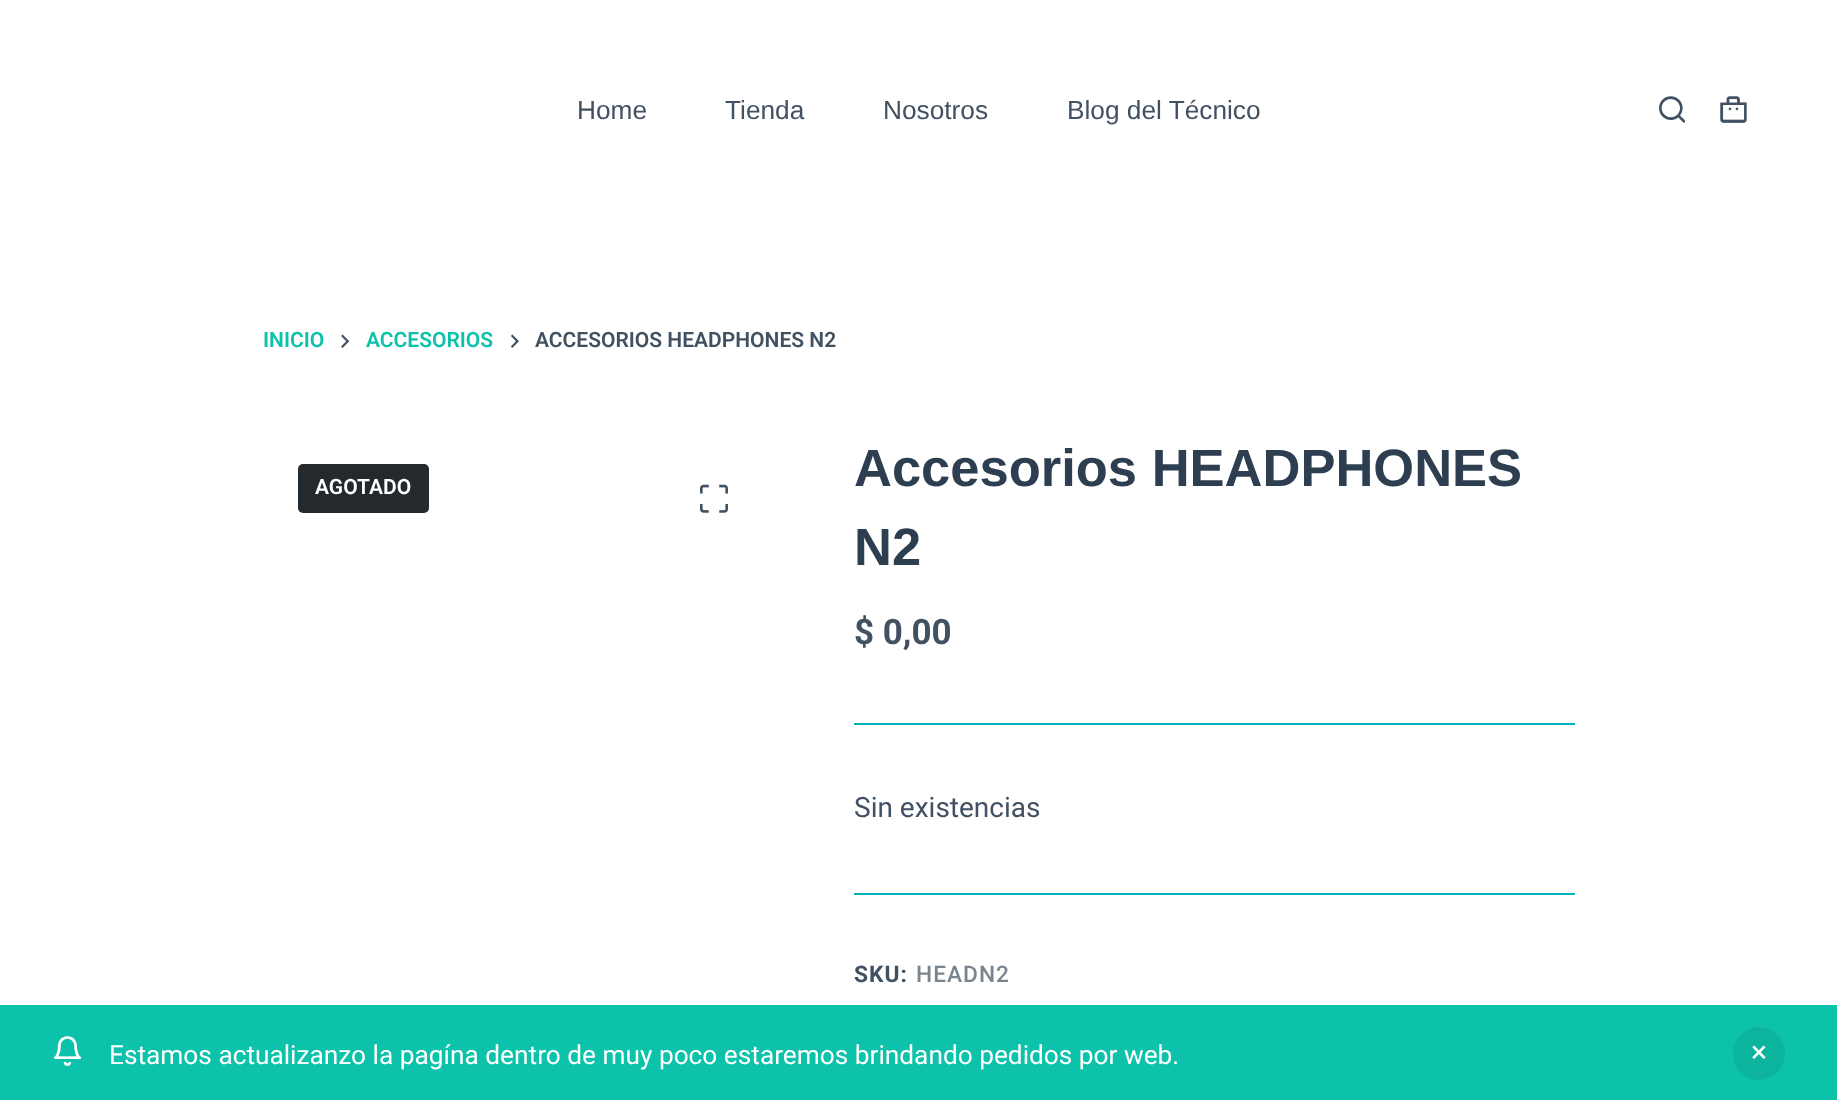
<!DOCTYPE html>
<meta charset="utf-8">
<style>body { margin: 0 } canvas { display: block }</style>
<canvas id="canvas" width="1837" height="1100"></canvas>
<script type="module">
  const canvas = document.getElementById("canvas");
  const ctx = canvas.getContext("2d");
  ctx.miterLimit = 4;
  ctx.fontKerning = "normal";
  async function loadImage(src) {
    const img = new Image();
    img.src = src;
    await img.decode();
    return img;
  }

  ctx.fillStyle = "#ffffff";
  ctx.fillRect(0, 0, 1837, 1100);
  ctx.font = "26.25px Liberation Sans";
  ctx.fillStyle = "#415161";
  ctx.fillText("Home", 577, 119);
  ctx.fillText("Tienda", 725, 119);
  ctx.fillText("Nosotros", 883, 119);
  ctx.fillText("Blog del Técnico", 1067, 119);
  ctx.drawImage(await loadImage("img1.png"), 1659, 96, 26, 27);
  ctx.drawImage(await loadImage("img2.png"), 1720, 96, 27, 27);
  ctx.font = "600 21px Roboto";
  ctx.fillStyle = "#0dc2aa";
  ctx.fillText("INICIO", 263, 347);
  ctx.drawImage(await loadImage("img3.png"), 341, 334, 9, 14);
  ctx.fillText("ACCESORIOS", 366, 347);
  ctx.drawImage(await loadImage("img4.png"), 511, 334, 8, 14);
  ctx.fillStyle = "#415161";
  ctx.fillText("ACCESORIOS HEADPHONES N2", 535, 347);
  ctx.fillStyle = "#24292e";
  ctx.beginPath();
  ctx.roundRect(298, 464, 131, 49, 5);
  ctx.fill();
  ctx.fillStyle = "#ffffff";
  ctx.fillText("AGOTADO", 315, 494);
  ctx.drawImage(await loadImage("img5.png"), 700, 484, 28, 29);
  ctx.font = "bold 52.5px Liberation Sans";
  ctx.fillStyle = "#2c3e50";
  ctx.fillText("Accesorios HEADPHONES", 854, 486);
  ctx.fillText("N2", 854, 565);
  ctx.font = "bold 35px Roboto";
  ctx.fillStyle = "#415161";
  ctx.fillText("$ 0,00", 854, 644);
  ctx.fillStyle = "#02b3bf";
  ctx.fillRect(854, 723, 721, 2);
  ctx.font = "28px Roboto";
  ctx.fillStyle = "#415161";
  ctx.fillText("Sin existencias", 854, 817);
  ctx.fillStyle = "#02b3bf";
  ctx.fillRect(854, 893, 721, 2);
  ctx.letterSpacing = "1px";
  ctx.font = "bold 22.75px Roboto";
  ctx.fillStyle = "#415161";
  ctx.fillText("SKU:", 854, 982);
  ctx.font = "500 22.75px Roboto";
  ctx.fillStyle = "#7a8590";
  ctx.fillText("HEADN2", 916, 982);
  ctx.fillStyle = "#0dc2aa";
  ctx.fillRect(0, 1005, 1837, 95);
  ctx.drawImage(await loadImage("img6.png"), 54, 1036, 28, 30);
  ctx.letterSpacing = "0px";
  ctx.font = "26.25px Roboto";
  ctx.fillStyle = "#ffffff";
  ctx.fillText("Estamos actualizanzo la pagína dentro de muy poco estaremos brindando pedidos por web.", 109, 1064);
  ctx.fillStyle = "#0cb49e";
  ctx.beginPath();
  ctx.roundRect(1733, 1027, 52, 53, 26);
  ctx.fill();
  ctx.font = "30px Roboto";
  ctx.fillStyle = "#ffffff";
  ctx.fillText("×", 1751, 1062);
</script>
